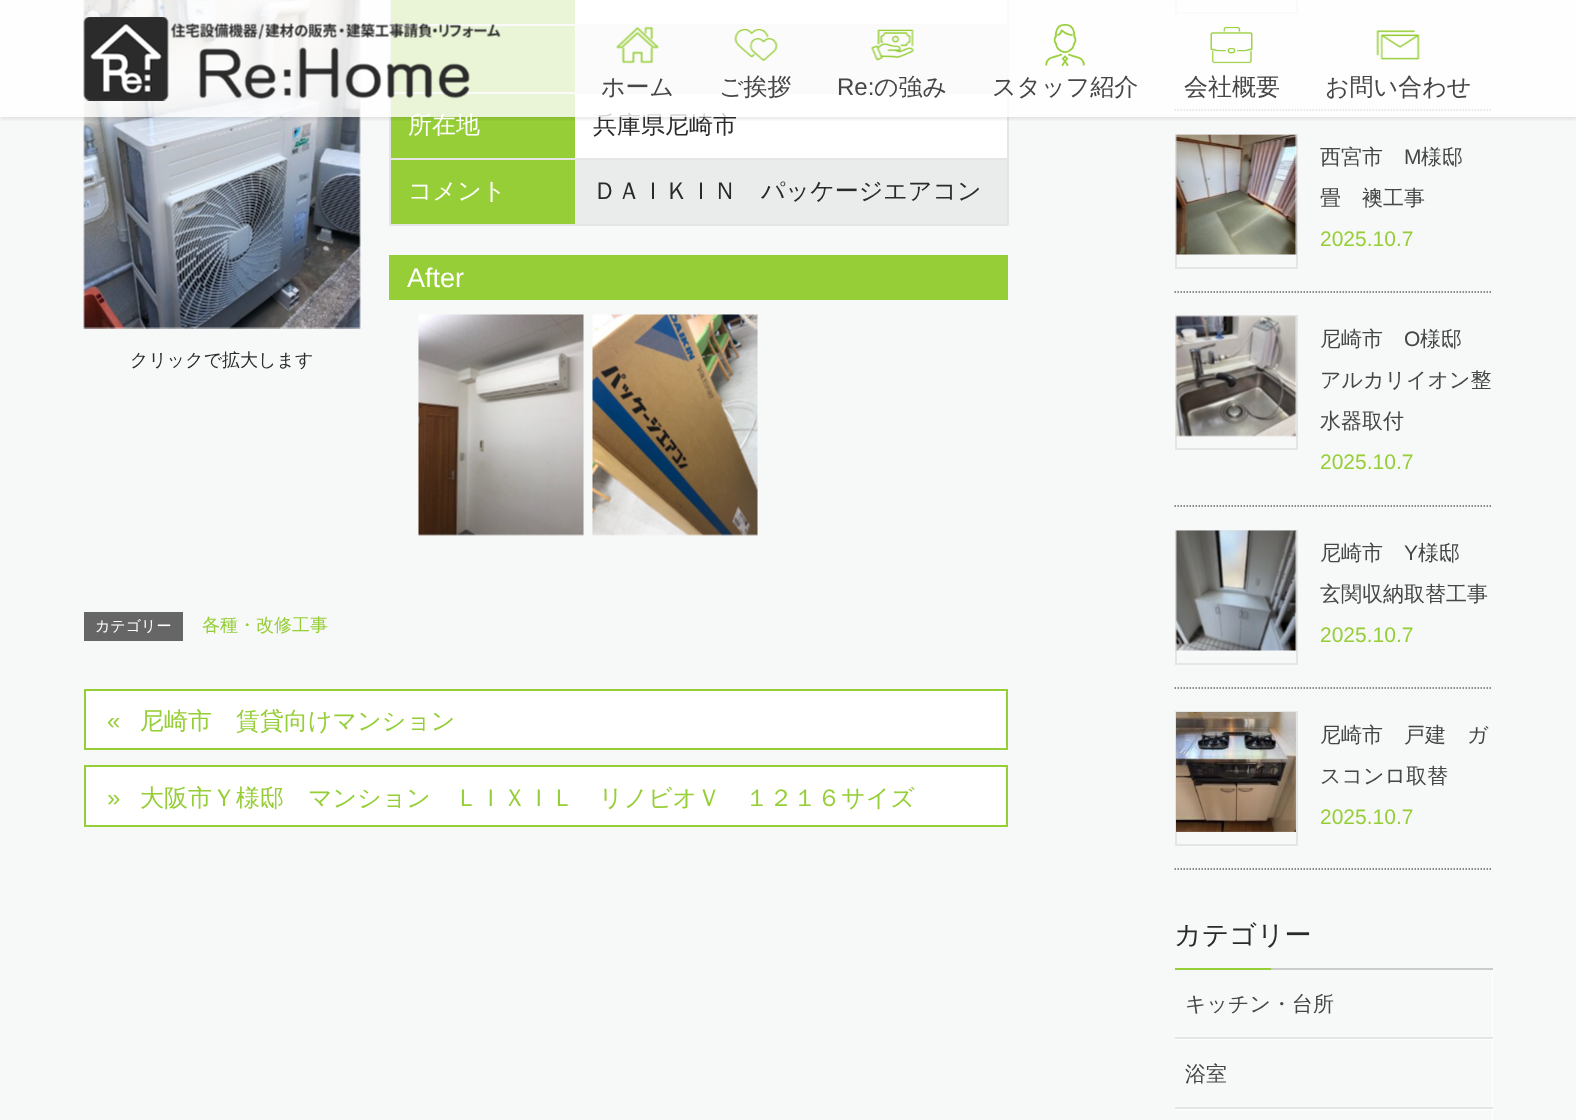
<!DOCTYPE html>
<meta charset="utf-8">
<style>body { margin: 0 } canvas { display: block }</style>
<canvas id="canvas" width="1576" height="1120"></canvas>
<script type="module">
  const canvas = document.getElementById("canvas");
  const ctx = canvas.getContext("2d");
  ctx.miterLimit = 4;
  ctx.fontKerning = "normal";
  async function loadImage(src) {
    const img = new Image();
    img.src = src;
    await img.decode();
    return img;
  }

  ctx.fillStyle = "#f7f8f8";
  ctx.fillRect(0, 0, 1576, 1120);
  ctx.fillStyle = "#ffffff";
  ctx.fillRect(575, 0, 432, 24);
  ctx.fillStyle = "#96ce37";
  ctx.fillRect(391, 0, 184, 24);
  ctx.fillStyle = "#e5e5e5";
  ctx.fillRect(389, 24, 2, 42);
  ctx.fillRect(1007, 0, 2, 225);
  ctx.fillRect(389, 24, 619, 2);
  ctx.fillRect(389, 0, 2, 26);
  ctx.fillStyle = "#eaebeb";
  ctx.fillRect(575, 26, 432, 66);
  ctx.fillStyle = "#96ce37";
  ctx.fillRect(391, 26, 184, 66);
  ctx.fillStyle = "#e5e5e5";
  ctx.fillRect(389, 224, 619, 2);
  ctx.fillRect(389, 158, 2, 67);
  ctx.fillRect(389, 158, 619, 2);
  ctx.fillRect(389, 92, 2, 67);
  ctx.fillRect(389, 92, 619, 2);
  ctx.fillStyle = "#ffffff";
  ctx.fillRect(575, 94, 432, 64);
  ctx.fillStyle = "#96ce37";
  ctx.fillRect(391, 94, 184, 64);
  ctx.drawImage(await loadImage("img10.png"), 83, 0, 278, 329);
  ctx.beginPath();
  ctx.moveTo(1174.5, 110);
  ctx.lineTo(1492.5, 110);
  ctx.strokeStyle = "#666666";
  ctx.lineWidth = 1.5;
  ctx.setLineDash([1.5, 1.5]);
  ctx.stroke();
  ctx.strokeStyle = "#e5e5e5";
  ctx.lineWidth = 2;
  ctx.setLineDash([]);
  ctx.strokeRect(1176, -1, 121, 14);
  ctx.save();
  ctx.beginPath();
  ctx.rect(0, 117, 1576, 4);
  ctx.clip();
  ctx.fillStyle = "rgba(0, 0, 0, 0.1)";
  ctx.filter = "blur(2px)";
  ctx.beginPath();
  ctx.rect(0, 2, 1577, 117);
  ctx.fill();
  ctx.filter = "none";
  ctx.restore();
  ctx.font = "500 24px WenQuanYi Zen Hei";
  ctx.fillStyle = "#ffffff";
  ctx.fillText("所在地", 408, 133);
  ctx.fillStyle = "#2a2a2a";
  ctx.fillText("兵庫県尼崎市", 593, 133);
  ctx.fillStyle = "rgba(255, 255, 255, 0.8)";
  ctx.fillRect(0, 0, 1576, 117);
  ctx.drawImage(await loadImage("img1.png"), 83, 17, 418, 84);
  ctx.drawImage(await loadImage("img2.png"), 616, 26, 43, 38);
  ctx.fillStyle = "#464646";
  ctx.fillText("ホーム", 601, 95);
  ctx.drawImage(await loadImage("img3.png"), 734, 29, 44, 32);
  ctx.fillText("ご挨拶", 719, 95);
  ctx.drawImage(await loadImage("img4.png"), 871, 29, 43, 32);
  ctx.font = "24px Liberation Sans";
  ctx.fillText("Re:", 837, 95);
  ctx.font = "500 24px WenQuanYi Zen Hei";
  ctx.fillText("の強み", 874, 95);
  ctx.drawImage(await loadImage("img5.png"), 1045, 24, 40, 42);
  ctx.fillText("スタッフ紹介", 992, 95);
  ctx.drawImage(await loadImage("img6.png"), 1210, 26, 43, 38);
  ctx.fillText("会社概要", 1184, 95);
  ctx.drawImage(await loadImage("img7.png"), 1376, 30, 44, 30);
  ctx.fillText("お問い合わせ", 1325, 95);
  ctx.fillStyle = "#eaebeb";
  ctx.fillRect(575, 160, 432, 64);
  ctx.fillStyle = "#96ce37";
  ctx.fillRect(391, 160, 184, 64);
  ctx.fillStyle = "#ffffff";
  ctx.fillText("コメント", 408, 199);
  ctx.fillStyle = "#2a2a2a";
  ctx.fillText("ＤＡＩＫＩＮ　パッケージエアコン", 593, 199);
  ctx.fillStyle = "#96ce37";
  ctx.fillRect(389, 255, 619, 45);
  ctx.font = "27px Liberation Sans";
  ctx.fillStyle = "#ffffff";
  ctx.fillText("After", 407, 287);
  ctx.drawImage(await loadImage("img8.png"), 418, 314, 166, 222);
  ctx.drawImage(await loadImage("img9.png"), 592, 314, 166, 222);
  ctx.font = "500 18px WenQuanYi Zen Hei";
  ctx.fillStyle = "#2a2a2a";
  ctx.fillText("クリックで拡大します", 130, 366);
  ctx.fillStyle = "#666666";
  ctx.fillRect(84, 612, 99, 29);
  ctx.font = "500 15px WenQuanYi Zen Hei";
  ctx.fillStyle = "#ffffff";
  ctx.fillText("カテゴリー", 95, 631);
  ctx.font = "500 18px WenQuanYi Zen Hei";
  ctx.fillStyle = "#96ce37";
  ctx.fillText("各種・改修工事", 202, 631);
  ctx.fillStyle = "#ffffff";
  ctx.beginPath();
  ctx.rect(85, 690, 922, 59);
  ctx.fill();
  ctx.strokeStyle = "#96ce37";
  ctx.stroke();
  ctx.font = "24px Liberation Sans";
  ctx.fillStyle = "#96ce37";
  ctx.fillText("«", 107, 729);
  ctx.font = "500 24px WenQuanYi Zen Hei";
  ctx.fillText("尼崎市　賃貸向けマンション", 140, 729);
  ctx.fillStyle = "#ffffff";
  ctx.beginPath();
  ctx.rect(85, 766, 922, 60);
  ctx.fill();
  ctx.stroke();
  ctx.font = "24px Liberation Sans";
  ctx.fillStyle = "#96ce37";
  ctx.fillText("»", 107, 806);
  ctx.font = "500 24px WenQuanYi Zen Hei";
  ctx.fillText("大阪市Ｙ様邸　マンション　ＬＩＸＩＬ　リノビオＶ　１２１６サイズ", 140, 806);
  ctx.beginPath();
  ctx.moveTo(1174.5, 292);
  ctx.lineTo(1492.5, 292);
  ctx.strokeStyle = "#666666";
  ctx.lineWidth = 1.5;
  ctx.setLineDash([1.5, 1.5]);
  ctx.stroke();
  ctx.strokeStyle = "#e5e5e5";
  ctx.lineWidth = 2;
  ctx.setLineDash([]);
  ctx.strokeRect(1176, 135, 121, 133);
  ctx.drawImage(await loadImage("img11.png"), 1175, 134, 122, 121);
  ctx.font = "500 21px WenQuanYi Zen Hei";
  ctx.fillStyle = "#464646";
  ctx.fillText("西宮市", 1320, 164);
  ctx.font = "21px Liberation Sans";
  ctx.fillText("M", 1404, 164);
  ctx.font = "500 21px WenQuanYi Zen Hei";
  ctx.fillText("様邸", 1421, 164);
  ctx.fillText("畳　襖工事", 1320, 205);
  ctx.font = "21px Liberation Sans";
  ctx.fillStyle = "#96ce37";
  ctx.fillText("2025.10.7", 1320, 246);
  ctx.beginPath();
  ctx.moveTo(1174.5, 506);
  ctx.lineTo(1492.5, 506);
  ctx.strokeStyle = "#666666";
  ctx.lineWidth = 1.5;
  ctx.setLineDash([1.5, 1.5]);
  ctx.stroke();
  ctx.strokeStyle = "#e5e5e5";
  ctx.lineWidth = 2;
  ctx.setLineDash([]);
  ctx.strokeRect(1176, 316, 121, 133);
  ctx.drawImage(await loadImage("img12.png"), 1175, 315, 122, 122);
  ctx.font = "500 21px WenQuanYi Zen Hei";
  ctx.fillStyle = "#464646";
  ctx.fillText("尼崎市", 1320, 346);
  ctx.font = "21px Liberation Sans";
  ctx.fillText("O", 1404, 346);
  ctx.font = "500 21px WenQuanYi Zen Hei";
  ctx.fillText("様邸", 1420, 346);
  ctx.fillText("アルカリイオン整", 1320, 387);
  ctx.fillText("水器取付", 1320, 428);
  ctx.font = "21px Liberation Sans";
  ctx.fillStyle = "#96ce37";
  ctx.fillText("2025.10.7", 1320, 469);
  ctx.beginPath();
  ctx.moveTo(1174.5, 688);
  ctx.lineTo(1492.5, 688);
  ctx.strokeStyle = "#666666";
  ctx.lineWidth = 1.5;
  ctx.setLineDash([1.5, 1.5]);
  ctx.stroke();
  ctx.strokeStyle = "#e5e5e5";
  ctx.lineWidth = 2;
  ctx.setLineDash([]);
  ctx.strokeRect(1176, 531, 121, 133);
  ctx.drawImage(await loadImage("img13.png"), 1175, 530, 122, 121);
  ctx.font = "500 21px WenQuanYi Zen Hei";
  ctx.fillStyle = "#464646";
  ctx.fillText("尼崎市", 1320, 560);
  ctx.font = "21px Liberation Sans";
  ctx.fillText("Y", 1404, 560);
  ctx.font = "500 21px WenQuanYi Zen Hei";
  ctx.fillText("様邸", 1418, 560);
  ctx.fillText("玄関収納取替工事", 1320, 601);
  ctx.font = "21px Liberation Sans";
  ctx.fillStyle = "#96ce37";
  ctx.fillText("2025.10.7", 1320, 642);
  ctx.beginPath();
  ctx.moveTo(1174.5, 869);
  ctx.lineTo(1492.5, 869);
  ctx.strokeStyle = "#666666";
  ctx.lineWidth = 1.5;
  ctx.setLineDash([1.5, 1.5]);
  ctx.stroke();
  ctx.strokeStyle = "#e5e5e5";
  ctx.lineWidth = 2;
  ctx.setLineDash([]);
  ctx.strokeRect(1176, 712, 121, 133);
  ctx.drawImage(await loadImage("img14.png"), 1176, 712, 120, 120);
  ctx.font = "500 21px WenQuanYi Zen Hei";
  ctx.fillStyle = "#464646";
  ctx.fillText("尼崎市　戸建　ガ", 1320, 742);
  ctx.fillText("スコンロ取替", 1320, 783);
  ctx.font = "21px Liberation Sans";
  ctx.fillStyle = "#96ce37";
  ctx.fillText("2025.10.7", 1320, 824);
  ctx.fillStyle = "#cccccc";
  ctx.fillRect(1271, 968, 222, 2);
  ctx.font = "500 27px WenQuanYi Zen Hei";
  ctx.fillStyle = "#2a2a2a";
  ctx.fillText("カテゴリー", 1174, 944);
  ctx.fillStyle = "#96ce37";
  ctx.fillRect(1175, 968, 96, 2);
  ctx.fillStyle = "#fefefe";
  ctx.beginPath();
  ctx.moveTo(1175, 1038);
  ctx.lineTo(1175, 1040);
  ctx.lineTo(1493, 1040);
  ctx.lineTo(1493, 971);
  ctx.lineTo(1492, 971);
  ctx.lineTo(1492, 1038);
  ctx.closePath();
  ctx.fill();
  ctx.fillStyle = "#e5e5e5";
  ctx.fillRect(1175, 1037, 318, 2);
  ctx.font = "500 21px WenQuanYi Zen Hei";
  ctx.fillStyle = "#464646";
  ctx.fillText("キッチン・台所", 1185, 1011);
  ctx.fillStyle = "#fefefe";
  ctx.beginPath();
  ctx.moveTo(1175, 1108);
  ctx.lineTo(1175, 1110);
  ctx.lineTo(1493, 1110);
  ctx.lineTo(1493, 1040);
  ctx.lineTo(1492, 1040);
  ctx.lineTo(1492, 1108);
  ctx.closePath();
  ctx.fill();
  ctx.fillStyle = "#e5e5e5";
  ctx.fillRect(1175, 1107, 318, 2);
  ctx.fillStyle = "#464646";
  ctx.fillText("浴室", 1185, 1081);
  ctx.fillStyle = "#fefefe";
  ctx.beginPath();
  ctx.moveTo(1175, 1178);
  ctx.lineTo(1175, 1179);
  ctx.lineTo(1493, 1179);
  ctx.lineTo(1493, 1110);
  ctx.lineTo(1492, 1110);
  ctx.lineTo(1492, 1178);
  ctx.closePath();
  ctx.fill();
</script>
